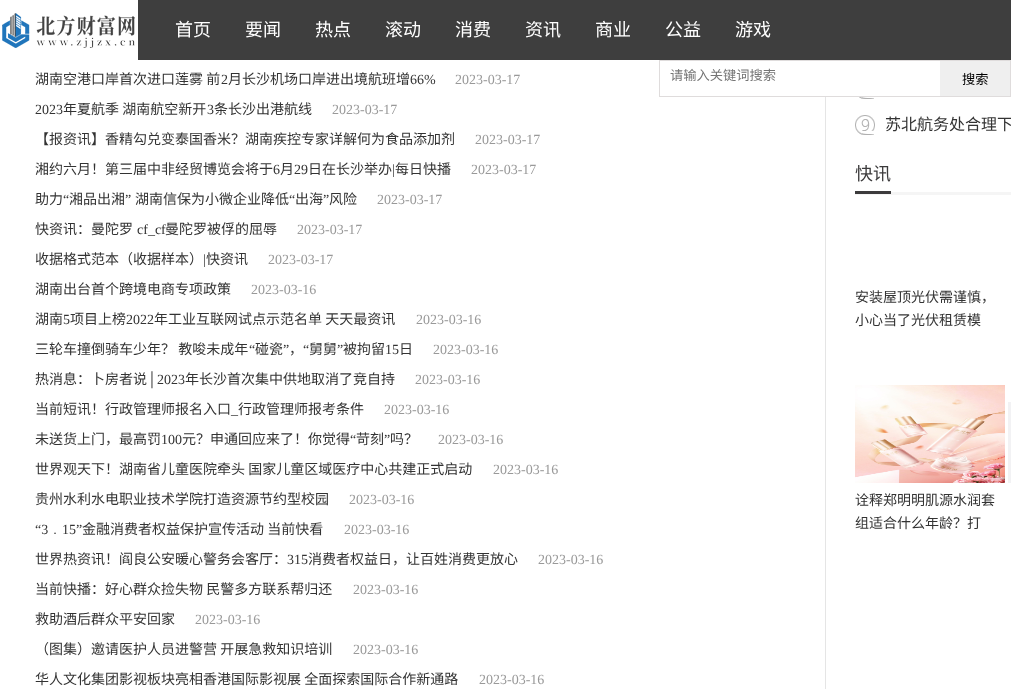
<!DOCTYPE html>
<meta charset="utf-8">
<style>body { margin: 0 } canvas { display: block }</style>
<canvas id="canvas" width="1011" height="689"></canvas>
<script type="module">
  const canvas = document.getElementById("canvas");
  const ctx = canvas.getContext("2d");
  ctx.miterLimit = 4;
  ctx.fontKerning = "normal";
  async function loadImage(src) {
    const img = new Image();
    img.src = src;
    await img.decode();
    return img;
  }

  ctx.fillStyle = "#ffffff";
  ctx.fillRect(0, 0, 1011, 689);
  ctx.fillStyle = "#3e3e3e";
  ctx.fillRect(138, 0, 873, 60);
  ctx.drawImage(await loadImage("img1.png"), 0, 0, 138, 60);
  ctx.font = "18px Noto Sans CJK SC";
  ctx.fillStyle = "#ffffff";
  ctx.fillText("首页", 175, 36);
  ctx.fillText("要闻", 245, 36);
  ctx.fillText("热点", 315, 36);
  ctx.fillText("滚动", 385, 36);
  ctx.fillText("消费", 455, 36);
  ctx.fillText("资讯", 525, 36);
  ctx.fillText("商业", 595, 36);
  ctx.fillText("公益", 665, 36);
  ctx.fillText("游戏", 735, 36);
  ctx.strokeStyle = "#dfdcdc";
  ctx.strokeRect(659.5, 60.5, 351, 36);
  ctx.font = "13.25px Noto Sans CJK SC";
  ctx.fillStyle = "#757575";
  ctx.fillText("请输入关键词搜索", 670, 80);
  ctx.fillStyle = "#efefef";
  ctx.fillRect(940, 61, 70, 35);
  ctx.fillStyle = "#000000";
  ctx.fillText("搜索", 962, 84);
  ctx.fillStyle = "#e5e5e5";
  ctx.fillRect(825, 97, 1, 592);
  ctx.font = "14px Noto Sans CJK SC";
  ctx.fillStyle = "#333333";
  ctx.fillText("湖南空港口岸首次进口莲雾 前", 35, 84);
  ctx.font = "14px Liberation Serif";
  ctx.fillText("2", 221, 84);
  ctx.font = "14px Noto Sans CJK SC";
  ctx.fillText("月长沙机场口岸进出境航班增", 228, 84);
  ctx.font = "14px Liberation Serif";
  ctx.fillText("66%", 410, 84);
  ctx.fillStyle = "#999999";
  ctx.fillText("2023-03-17", 455, 84);
  ctx.fillStyle = "#333333";
  ctx.fillText("2023", 35, 114);
  ctx.font = "14px Noto Sans CJK SC";
  ctx.fillText("年夏航季 湖南航空新开", 63, 114);
  ctx.font = "14px Liberation Serif";
  ctx.fillText("3", 207, 114);
  ctx.font = "14px Noto Sans CJK SC";
  ctx.fillText("条长沙出港航线", 214, 114);
  ctx.font = "14px Liberation Serif";
  ctx.fillStyle = "#999999";
  ctx.fillText("2023-03-17", 332, 114);
  ctx.font = "14px Noto Sans CJK SC";
  ctx.fillStyle = "#333333";
  ctx.fillText("【报资讯】香精勾兑变泰国香米？湖南疾控专家详解何为食品添加剂", 35, 144);
  ctx.font = "14px Liberation Serif";
  ctx.fillStyle = "#999999";
  ctx.fillText("2023-03-17", 475, 144);
  ctx.font = "14px Noto Sans CJK SC";
  ctx.fillStyle = "#333333";
  ctx.fillText("湘约六月！第三届中非经贸博览会将于", 35, 174);
  ctx.font = "14px Liberation Serif";
  ctx.fillText("6", 273, 174);
  ctx.font = "14px Noto Sans CJK SC";
  ctx.fillText("月", 280, 174);
  ctx.font = "14px Liberation Serif";
  ctx.fillText("29", 294, 174);
  ctx.font = "14px Noto Sans CJK SC";
  ctx.fillText("日在长沙举办", 308, 174);
  ctx.font = "14px Liberation Serif";
  ctx.fillText("|", 392, 174);
  ctx.font = "14px Noto Sans CJK SC";
  ctx.fillText("每日快播", 395, 174);
  ctx.font = "14px Liberation Serif";
  ctx.fillStyle = "#999999";
  ctx.fillText("2023-03-17", 471, 174);
  ctx.font = "14px Noto Sans CJK SC";
  ctx.fillStyle = "#333333";
  ctx.fillText("助力", 35, 204);
  ctx.font = "14px Liberation Serif";
  ctx.fillText("“", 63, 204);
  ctx.font = "14px Noto Sans CJK SC";
  ctx.fillText("湘品出湘", 69, 204);
  ctx.font = "14px Liberation Serif";
  ctx.fillText("”", 125, 204);
  ctx.font = "14px Noto Sans CJK SC";
  ctx.fillText("湖南信保为小微企业降低", 135, 204);
  ctx.font = "14px Liberation Serif";
  ctx.fillText("“", 289, 204);
  ctx.font = "14px Noto Sans CJK SC";
  ctx.fillText("出海", 295, 204);
  ctx.font = "14px Liberation Serif";
  ctx.fillText("”", 323, 204);
  ctx.font = "14px Noto Sans CJK SC";
  ctx.fillText("风险", 329, 204);
  ctx.font = "14px Liberation Serif";
  ctx.fillStyle = "#999999";
  ctx.fillText("2023-03-17", 377, 204);
  ctx.font = "14px Noto Sans CJK SC";
  ctx.fillStyle = "#333333";
  ctx.fillText("快资讯：曼陀罗", 35, 234);
  ctx.font = "14px Liberation Serif";
  ctx.fillText("cf_cf", 137, 234);
  ctx.font = "14px Noto Sans CJK SC";
  ctx.fillText("曼陀罗被俘的屈辱", 165, 234);
  ctx.font = "14px Liberation Serif";
  ctx.fillStyle = "#999999";
  ctx.fillText("2023-03-17", 297, 234);
  ctx.font = "14px Noto Sans CJK SC";
  ctx.fillStyle = "#333333";
  ctx.fillText("收据格式范本（收据样本）", 35, 264);
  ctx.font = "14px Liberation Serif";
  ctx.fillText("|", 203, 264);
  ctx.font = "14px Noto Sans CJK SC";
  ctx.fillText("快资讯", 206, 264);
  ctx.font = "14px Liberation Serif";
  ctx.fillStyle = "#999999";
  ctx.fillText("2023-03-17", 268, 264);
  ctx.font = "14px Noto Sans CJK SC";
  ctx.fillStyle = "#333333";
  ctx.fillText("湖南出台首个跨境电商专项政策", 35, 294);
  ctx.font = "14px Liberation Serif";
  ctx.fillStyle = "#999999";
  ctx.fillText("2023-03-16", 251, 294);
  ctx.font = "14px Noto Sans CJK SC";
  ctx.fillStyle = "#333333";
  ctx.fillText("湖南", 35, 324);
  ctx.font = "14px Liberation Serif";
  ctx.fillText("5", 63, 324);
  ctx.font = "14px Noto Sans CJK SC";
  ctx.fillText("项目上榜", 70, 324);
  ctx.font = "14px Liberation Serif";
  ctx.fillText("2022", 126, 324);
  ctx.font = "14px Noto Sans CJK SC";
  ctx.fillText("年工业互联网试点示范名单 天天最资讯", 154, 324);
  ctx.font = "14px Liberation Serif";
  ctx.fillStyle = "#999999";
  ctx.fillText("2023-03-16", 416, 324);
  ctx.font = "14px Noto Sans CJK SC";
  ctx.fillStyle = "#333333";
  ctx.fillText("三轮车撞倒骑车少年？ 教唆未成年", 35, 354);
  ctx.font = "14px Liberation Serif";
  ctx.fillText("“", 249, 354);
  ctx.font = "14px Noto Sans CJK SC";
  ctx.fillText("碰瓷", 255, 354);
  ctx.font = "14px Liberation Serif";
  ctx.fillText("”", 283, 354);
  ctx.font = "14px Noto Sans CJK SC";
  ctx.fillText("，", 289, 354);
  ctx.font = "14px Liberation Serif";
  ctx.fillText("“", 303, 354);
  ctx.font = "14px Noto Sans CJK SC";
  ctx.fillText("舅舅", 309, 354);
  ctx.font = "14px Liberation Serif";
  ctx.fillText("”", 337, 354);
  ctx.font = "14px Noto Sans CJK SC";
  ctx.fillText("被拘留", 343, 354);
  ctx.font = "14px Liberation Serif";
  ctx.fillText("15", 385, 354);
  ctx.font = "14px Noto Sans CJK SC";
  ctx.fillText("日", 399, 354);
  ctx.font = "14px Liberation Serif";
  ctx.fillStyle = "#999999";
  ctx.fillText("2023-03-16", 433, 354);
  ctx.font = "14px Noto Sans CJK SC";
  ctx.fillStyle = "#333333";
  ctx.fillText("热消息：卜房者说", 35, 384);
  ctx.font = "14px Liberation Serif";
  ctx.fillText("│2023", 147, 384);
  ctx.font = "14px Noto Sans CJK SC";
  ctx.fillText("年长沙首次集中供地取消了竞自持", 185, 384);
  ctx.font = "14px Liberation Serif";
  ctx.fillStyle = "#999999";
  ctx.fillText("2023-03-16", 415, 384);
  ctx.font = "14px Noto Sans CJK SC";
  ctx.fillStyle = "#333333";
  ctx.fillText("当前短讯！行政管理师报名入口", 35, 414);
  ctx.font = "14px Liberation Serif";
  ctx.fillText("_", 231, 414);
  ctx.font = "14px Noto Sans CJK SC";
  ctx.fillText("行政管理师报考条件", 238, 414);
  ctx.font = "14px Liberation Serif";
  ctx.fillStyle = "#999999";
  ctx.fillText("2023-03-16", 384, 414);
  ctx.font = "14px Noto Sans CJK SC";
  ctx.fillStyle = "#333333";
  ctx.fillText("未送货上门，最高罚", 35, 444);
  ctx.font = "14px Liberation Serif";
  ctx.fillText("100", 161, 444);
  ctx.font = "14px Noto Sans CJK SC";
  ctx.fillText("元？申通回应来了！你觉得", 182, 444);
  ctx.font = "14px Liberation Serif";
  ctx.fillText("“", 350, 444);
  ctx.font = "14px Noto Sans CJK SC";
  ctx.fillText("苛刻", 356, 444);
  ctx.font = "14px Liberation Serif";
  ctx.fillText("”", 384, 444);
  ctx.font = "14px Noto Sans CJK SC";
  ctx.fillText("吗？", 390, 444);
  ctx.font = "14px Liberation Serif";
  ctx.fillStyle = "#999999";
  ctx.fillText("2023-03-16", 438, 444);
  ctx.font = "14px Noto Sans CJK SC";
  ctx.fillStyle = "#333333";
  ctx.fillText("世界观天下！湖南省儿童医院牵头 国家儿童区域医疗中心共建正式启动", 35, 474);
  ctx.font = "14px Liberation Serif";
  ctx.fillStyle = "#999999";
  ctx.fillText("2023-03-16", 493, 474);
  ctx.font = "14px Noto Sans CJK SC";
  ctx.fillStyle = "#333333";
  ctx.fillText("贵州水利水电职业技术学院打造资源节约型校园", 35, 504);
  ctx.font = "14px Liberation Serif";
  ctx.fillStyle = "#999999";
  ctx.fillText("2023-03-16", 349, 504);
  ctx.fillStyle = "#333333";
  ctx.fillText("“3", 35, 534);
  ctx.font = "14px Noto Sans CJK SC";
  ctx.fillText("﹒", 48, 534);
  ctx.font = "14px Liberation Serif";
  ctx.fillText("15”", 62, 534);
  ctx.font = "14px Noto Sans CJK SC";
  ctx.fillText("金融消费者权益保护宣传活动 当前快看", 82, 534);
  ctx.font = "14px Liberation Serif";
  ctx.fillStyle = "#999999";
  ctx.fillText("2023-03-16", 344, 534);
  ctx.font = "14px Noto Sans CJK SC";
  ctx.fillStyle = "#333333";
  ctx.fillText("世界热资讯！阎良公安暖心警务会客厅：", 35, 564);
  ctx.font = "14px Liberation Serif";
  ctx.fillText("315", 287, 564);
  ctx.font = "14px Noto Sans CJK SC";
  ctx.fillText("消费者权益日，让百姓消费更放心", 308, 564);
  ctx.font = "14px Liberation Serif";
  ctx.fillStyle = "#999999";
  ctx.fillText("2023-03-16", 538, 564);
  ctx.font = "14px Noto Sans CJK SC";
  ctx.fillStyle = "#333333";
  ctx.fillText("当前快播：好心群众捡失物 民警多方联系帮归还", 35, 594);
  ctx.font = "14px Liberation Serif";
  ctx.fillStyle = "#999999";
  ctx.fillText("2023-03-16", 353, 594);
  ctx.font = "14px Noto Sans CJK SC";
  ctx.fillStyle = "#333333";
  ctx.fillText("救助酒后群众平安回家", 35, 624);
  ctx.font = "14px Liberation Serif";
  ctx.fillStyle = "#999999";
  ctx.fillText("2023-03-16", 195, 624);
  ctx.font = "14px Noto Sans CJK SC";
  ctx.fillStyle = "#333333";
  ctx.fillText("（图集）邀请医护人员进警营 开展急救知识培训", 35, 654);
  ctx.font = "14px Liberation Serif";
  ctx.fillStyle = "#999999";
  ctx.fillText("2023-03-16", 353, 654);
  ctx.font = "14px Noto Sans CJK SC";
  ctx.fillStyle = "#333333";
  ctx.fillText("华人文化集团影视板块亮相香港国际影视展 全面探索国际合作新通路", 35, 684);
  ctx.font = "14px Liberation Serif";
  ctx.fillStyle = "#999999";
  ctx.fillText("2023-03-16", 479, 684);
  ctx.drawImage(await loadImage("img2.png"), 855, 97, 20, 38);
  ctx.wordSpacing = "1px";
  ctx.font = "16px Noto Sans CJK SC";
  ctx.fillStyle = "#333333";
  ctx.fillText("苏北航务处合理下", 885, 130);
  ctx.fillStyle = "#f5f5f5";
  ctx.fillRect(855, 192, 156, 3);
  ctx.wordSpacing = "0px";
  ctx.font = "18px Noto Sans CJK SC";
  ctx.fillStyle = "#3c3b3c";
  ctx.fillText("快讯", 855, 180);
  ctx.fillRect(855, 191, 36, 3);
  ctx.font = "14px Noto Sans CJK SC";
  ctx.fillStyle = "#333333";
  ctx.fillText("安装屋顶光伏需谨慎，", 855, 302);
  ctx.fillText("小心当了光伏租赁模", 855, 325);
  ctx.fillStyle = "#f2f2f4";
  ctx.fillRect(1008, 402, 3, 81);
  ctx.drawImage(await loadImage("img3.png"), 855, 385, 150, 98);
  ctx.fillStyle = "#333333";
  ctx.fillText("诠释郑明明肌源水润套", 855, 505);
  ctx.fillText("组适合什么年龄？打", 855, 528);
</script>
